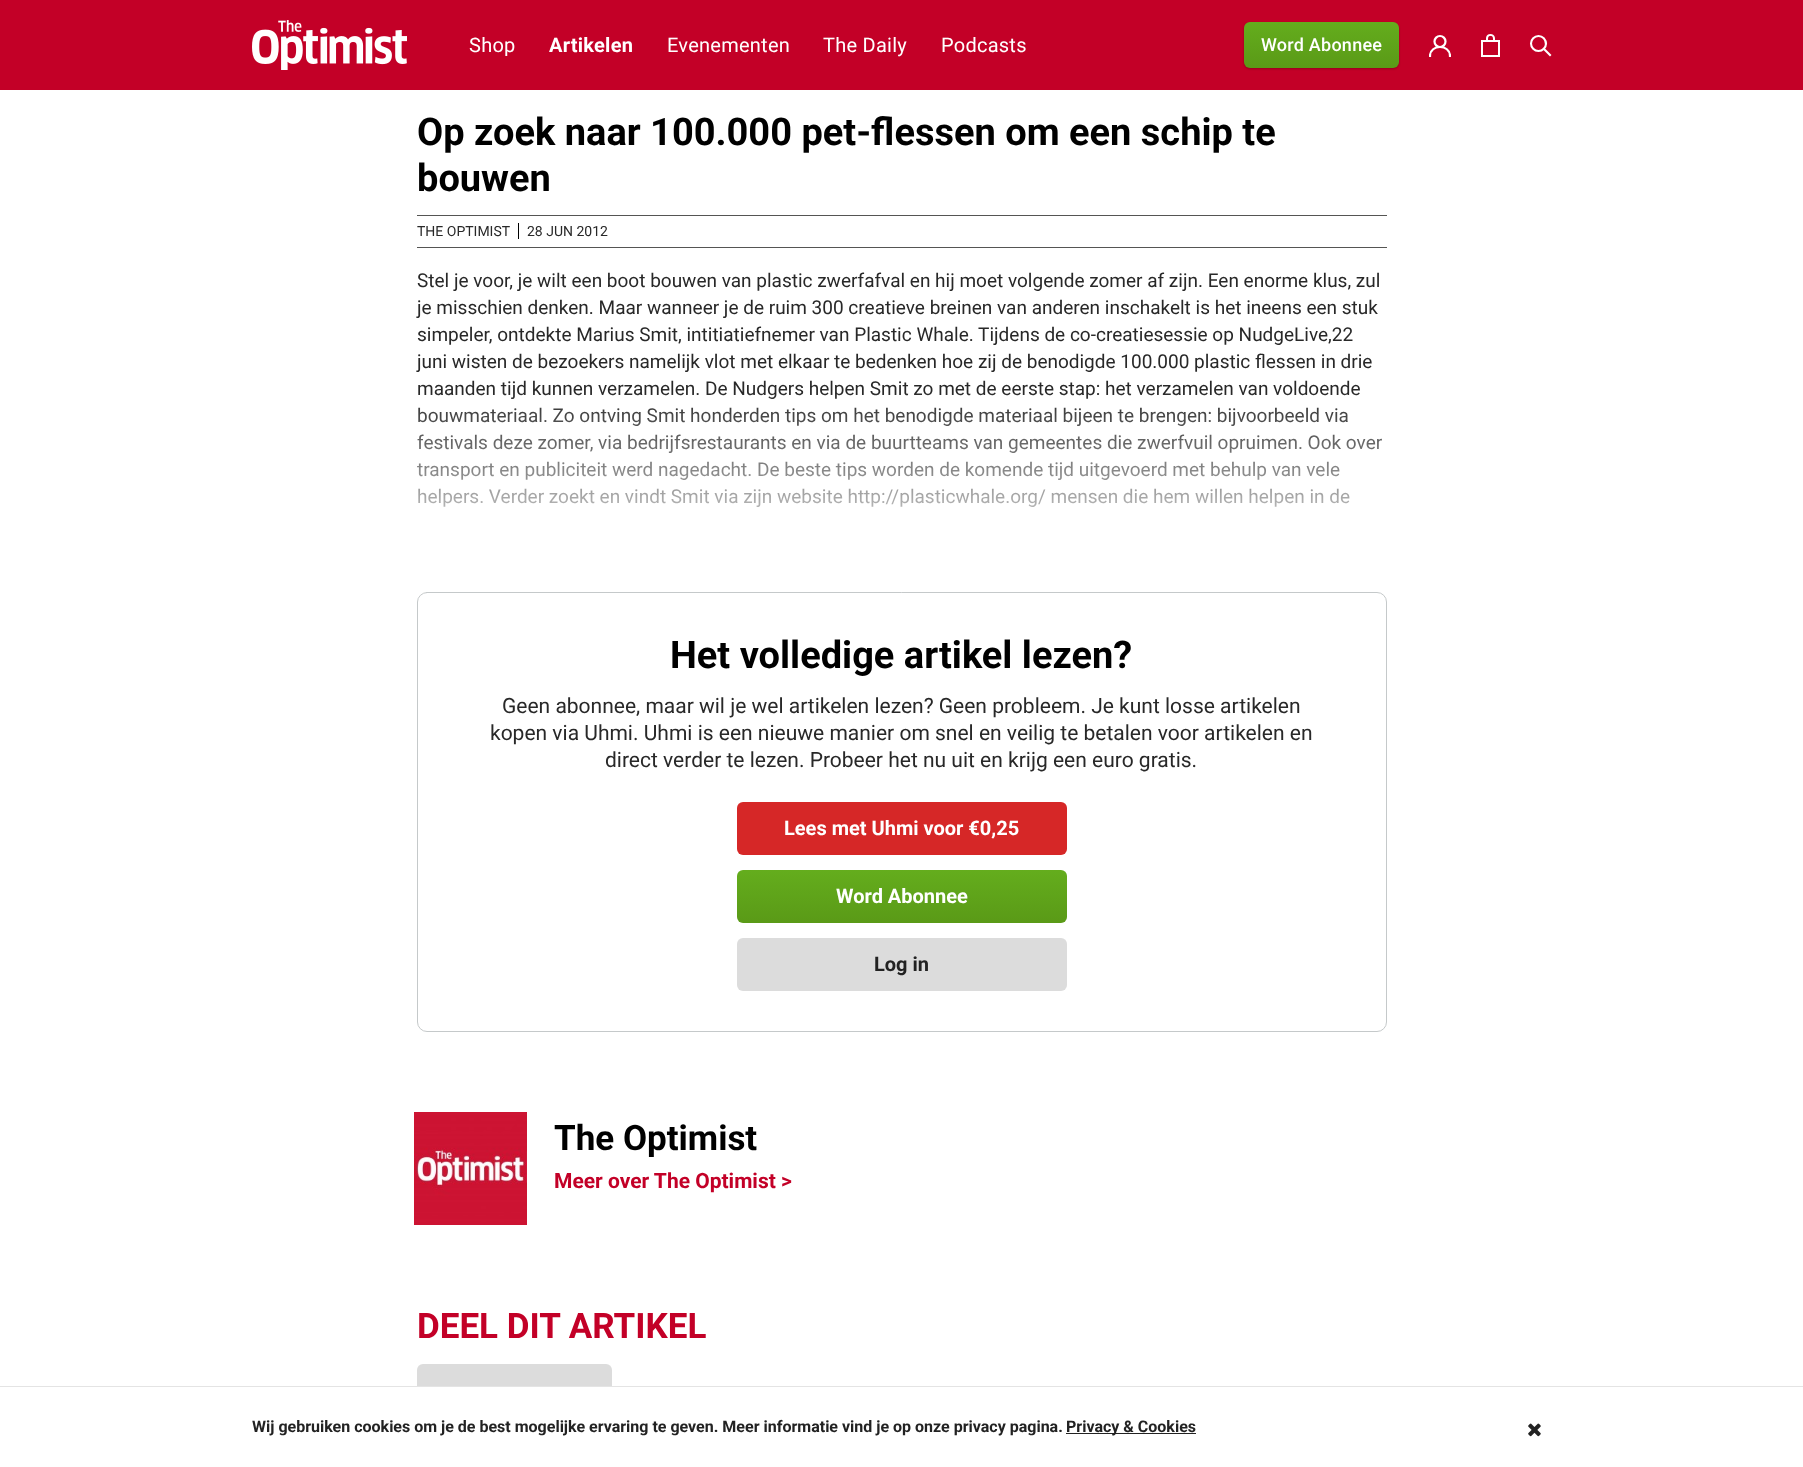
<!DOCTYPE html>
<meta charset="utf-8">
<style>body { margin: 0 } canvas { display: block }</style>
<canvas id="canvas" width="1803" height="1467"></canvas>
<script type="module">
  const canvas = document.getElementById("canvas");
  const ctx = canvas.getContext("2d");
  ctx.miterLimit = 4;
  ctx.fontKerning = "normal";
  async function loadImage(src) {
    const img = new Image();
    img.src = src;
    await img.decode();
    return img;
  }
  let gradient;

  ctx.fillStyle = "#ffffff";
  ctx.fillRect(0, 0, 1803, 1467);
  ctx.fillStyle = "#c30027";
  ctx.fillRect(0, 0, 1803, 90);
  ctx.drawImage(await loadImage("img1.png"), 252, 20, 155, 50);
  ctx.letterSpacing = "0.25px";
  ctx.font = "20px Roboto";
  ctx.fillStyle = "#ffffff";
  ctx.fillText("Shop", 469, 52);
  ctx.font = "bold 20px Roboto";
  ctx.fillText("Artikelen", 549, 52);
  ctx.font = "20px Roboto";
  ctx.fillText("Evenementen", 667, 52);
  ctx.fillText("The Daily", 823, 52);
  ctx.fillText("Podcasts", 941, 52);
  ctx.fillStyle = "rgba(0, 0, 0, 0.25)";
  ctx.filter = "blur(1px)";
  ctx.beginPath();
  ctx.roundRect(1244, 23, 155, 46, 6);
  ctx.fill();
  ctx.filter = "none";
  gradient = ctx.createLinearGradient(1322, 22, 1322, 68);
  gradient.addColorStop(0, "#64ad1d");
  gradient.addColorStop(1, "#5a9a17");
  ctx.fillStyle = gradient;
  ctx.beginPath();
  ctx.roundRect(1244, 22, 155, 46, 6);
  ctx.fill();
  ctx.font = "500 18px Roboto";
  ctx.fillStyle = "#ffffff";
  ctx.fillText("Word Abonnee", 1261, 51);
  ctx.save();
  ctx.beginPath();
  ctx.rect(1429, 35, 22, 22);
  ctx.clip();
  ctx.beginPath();
  ctx.moveTo(1430, 56);
  ctx.bezierCurveTo(1430, 44, 1450, 44, 1450, 56);
  ctx.strokeStyle = "#ffffff";
  ctx.lineWidth = 2.2;
  ctx.lineCap = "square";
  ctx.stroke();
  ctx.restore();
  ctx.beginPath();
  ctx.arc(1440, 41.5, 5.5, 0, Math.PI * 2);
  ctx.strokeStyle = "#ffffff";
  ctx.lineWidth = 2.2;
  ctx.stroke();
  ctx.drawImage(await loadImage("img2.png"), 1481, 34, 19, 23);
  ctx.beginPath();
  ctx.moveTo(1550, 55);
  ctx.lineTo(1544, 49);
  ctx.lineWidth = 2.1;
  ctx.lineCap = "square";
  ctx.stroke();
  ctx.beginPath();
  ctx.arc(1538.5, 43.5, 7.5, 0, Math.PI * 2);
  ctx.stroke();
  ctx.letterSpacing = "0px";
  ctx.font = "bold 38px Roboto";
  ctx.fillStyle = "#000000";
  ctx.fillText("Op zoek naar 100.000 pet-flessen om een schip te", 417, 145);
  ctx.fillText("bouwen", 417, 191);
  ctx.fillStyle = "#555553";
  ctx.fillRect(417, 215, 970, 1);
  ctx.fillRect(417, 247, 970, 1);
  ctx.font = "14px Roboto";
  ctx.fillStyle = "#282828";
  ctx.fillText("THE OPTIMIST", 417, 236);
  ctx.fillStyle = "#000000";
  ctx.fillRect(518, 223, 1, 16);
  ctx.fillStyle = "#282828";
  ctx.fillText("28 JUN 2012", 527, 236);
  ctx.font = "19px Roboto";
  ctx.fillText("Stel je voor, je wilt een boot bouwen van plastic zwerfafval en hij moet volgende zomer af zijn. Een enorme klus, zul", 417, 287);
  ctx.fillText("je misschien denken. Maar wanneer je de ruim 300 creatieve breinen van anderen inschakelt is het ineens een stuk", 417, 314);
  ctx.fillText("simpeler, ontdekte Marius Smit, intitiatiefnemer van Plastic Whale. Tijdens de co-creatiesessie op NudgeLive,22", 417, 341);
  ctx.fillText("juni wisten de bezoekers namelijk vlot met elkaar te bedenken hoe zij de benodigde 100.000 plastic flessen in drie", 417, 368);
  ctx.fillText("maanden tijd kunnen verzamelen. De Nudgers helpen Smit zo met de eerste stap: het verzamelen van voldoende", 417, 395);
  ctx.fillText("bouwmateriaal. Zo ontving Smit honderden tips om het benodigde materiaal bijeen te brengen: bijvoorbeeld via", 417, 422);
  ctx.fillText("festivals deze zomer, via bedrijfsrestaurants en via de buurtteams van gemeentes die zwerfvuil opruimen. Ook over", 417, 449);
  ctx.fillText("transport en publiciteit werd nagedacht. De beste tips worden de komende tijd uitgevoerd met behulp van vele", 417, 476);
  ctx.fillText("helpers. Verder zoekt en vindt Smit via zijn website http://plasticwhale.org/ mensen die hem willen helpen in de", 417, 503);
  ctx.beginPath();
  ctx.roundRect(417.5, 592.5, 969, 439, 9.5);
  ctx.strokeStyle = "#c5c9ca";
  ctx.lineWidth = 1;
  ctx.stroke();
  gradient = ctx.createLinearGradient(902, 390, 902, 590);
  gradient.addColorStop(0, "rgba(255, 255, 255, 0)");
  gradient.addColorStop(0.9, "#ffffff");
  ctx.fillStyle = gradient;
  ctx.fillRect(416, 394, 966, 114);
  ctx.font = "bold 38px Roboto";
  ctx.fillStyle = "#000000";
  ctx.fillText("Het volledige artikel lezen?", 670, 668);
  ctx.font = "21px Roboto";
  ctx.fillStyle = "#282828";
  ctx.fillText("Geen abonnee, maar wil je wel artikelen lezen? Geen probleem. Je kunt losse artikelen", 502, 713);
  ctx.fillText("kopen via Uhmi. Uhmi is een nieuwe manier om snel en veilig te betalen voor artikelen en", 490, 740);
  ctx.fillText("direct verder te lezen. Probeer het nu uit en krijg een euro gratis.", 605, 767);
  ctx.fillStyle = "#d62727";
  ctx.beginPath();
  ctx.roundRect(737, 802, 330, 53, 6);
  ctx.fill();
  ctx.font = "bold 20px Roboto";
  ctx.fillStyle = "#ffffff";
  ctx.fillText("Lees met Uhmi voor €0,25", 784, 835);
  gradient = ctx.createLinearGradient(902, 870, 902, 923);
  gradient.addColorStop(0, "#64ad1d");
  gradient.addColorStop(1, "#5a9a17");
  ctx.fillStyle = gradient;
  ctx.beginPath();
  ctx.roundRect(737, 870, 330, 53, 6);
  ctx.fill();
  ctx.fillStyle = "#ffffff";
  ctx.fillText("Word Abonnee", 836, 903);
  ctx.fillStyle = "#dcdcdc";
  ctx.beginPath();
  ctx.roundRect(737, 938, 330, 53, 6);
  ctx.fill();
  ctx.fillStyle = "#222222";
  ctx.fillText("Log in", 874, 971);
  ctx.drawImage(await loadImage("img3.png"), 414, 1112, 113, 113);
  ctx.font = "bold 35px Roboto";
  ctx.fillStyle = "#000000";
  ctx.fillText("The Optimist", 554, 1150);
  ctx.font = "bold 21px Roboto";
  ctx.fillStyle = "#c30027";
  ctx.fillText("Meer over The Optimist >", 554, 1188);
  ctx.font = "bold 35px Roboto";
  ctx.fillText("DEEL DIT ARTIKEL", 417, 1338);
  ctx.fillStyle = "#dcdcdc";
  ctx.beginPath();
  ctx.roundRect(417, 1364, 195, 51, 6);
  ctx.fill();
  ctx.fillStyle = "#ffffff";
  ctx.fillRect(417, 1387, 195, 28);
  ctx.fillStyle = "#e4e4e4";
  ctx.fillRect(0, 1386, 1803, 1);
  ctx.font = "bold 16px Roboto";
  ctx.fillStyle = "#222222";
  ctx.fillText("Wij gebruiken cookies om je de best mogelijke ervaring te geven. Meer informatie vind je op onze privacy pagina.", 252, 1432);
  ctx.fillRect(1066, 1433, 130, 1);
  ctx.fillText("Privacy & Cookies", 1066, 1432);
  ctx.drawImage(await loadImage("img4.png"), 1528, 1423, 13, 14);
</script>
